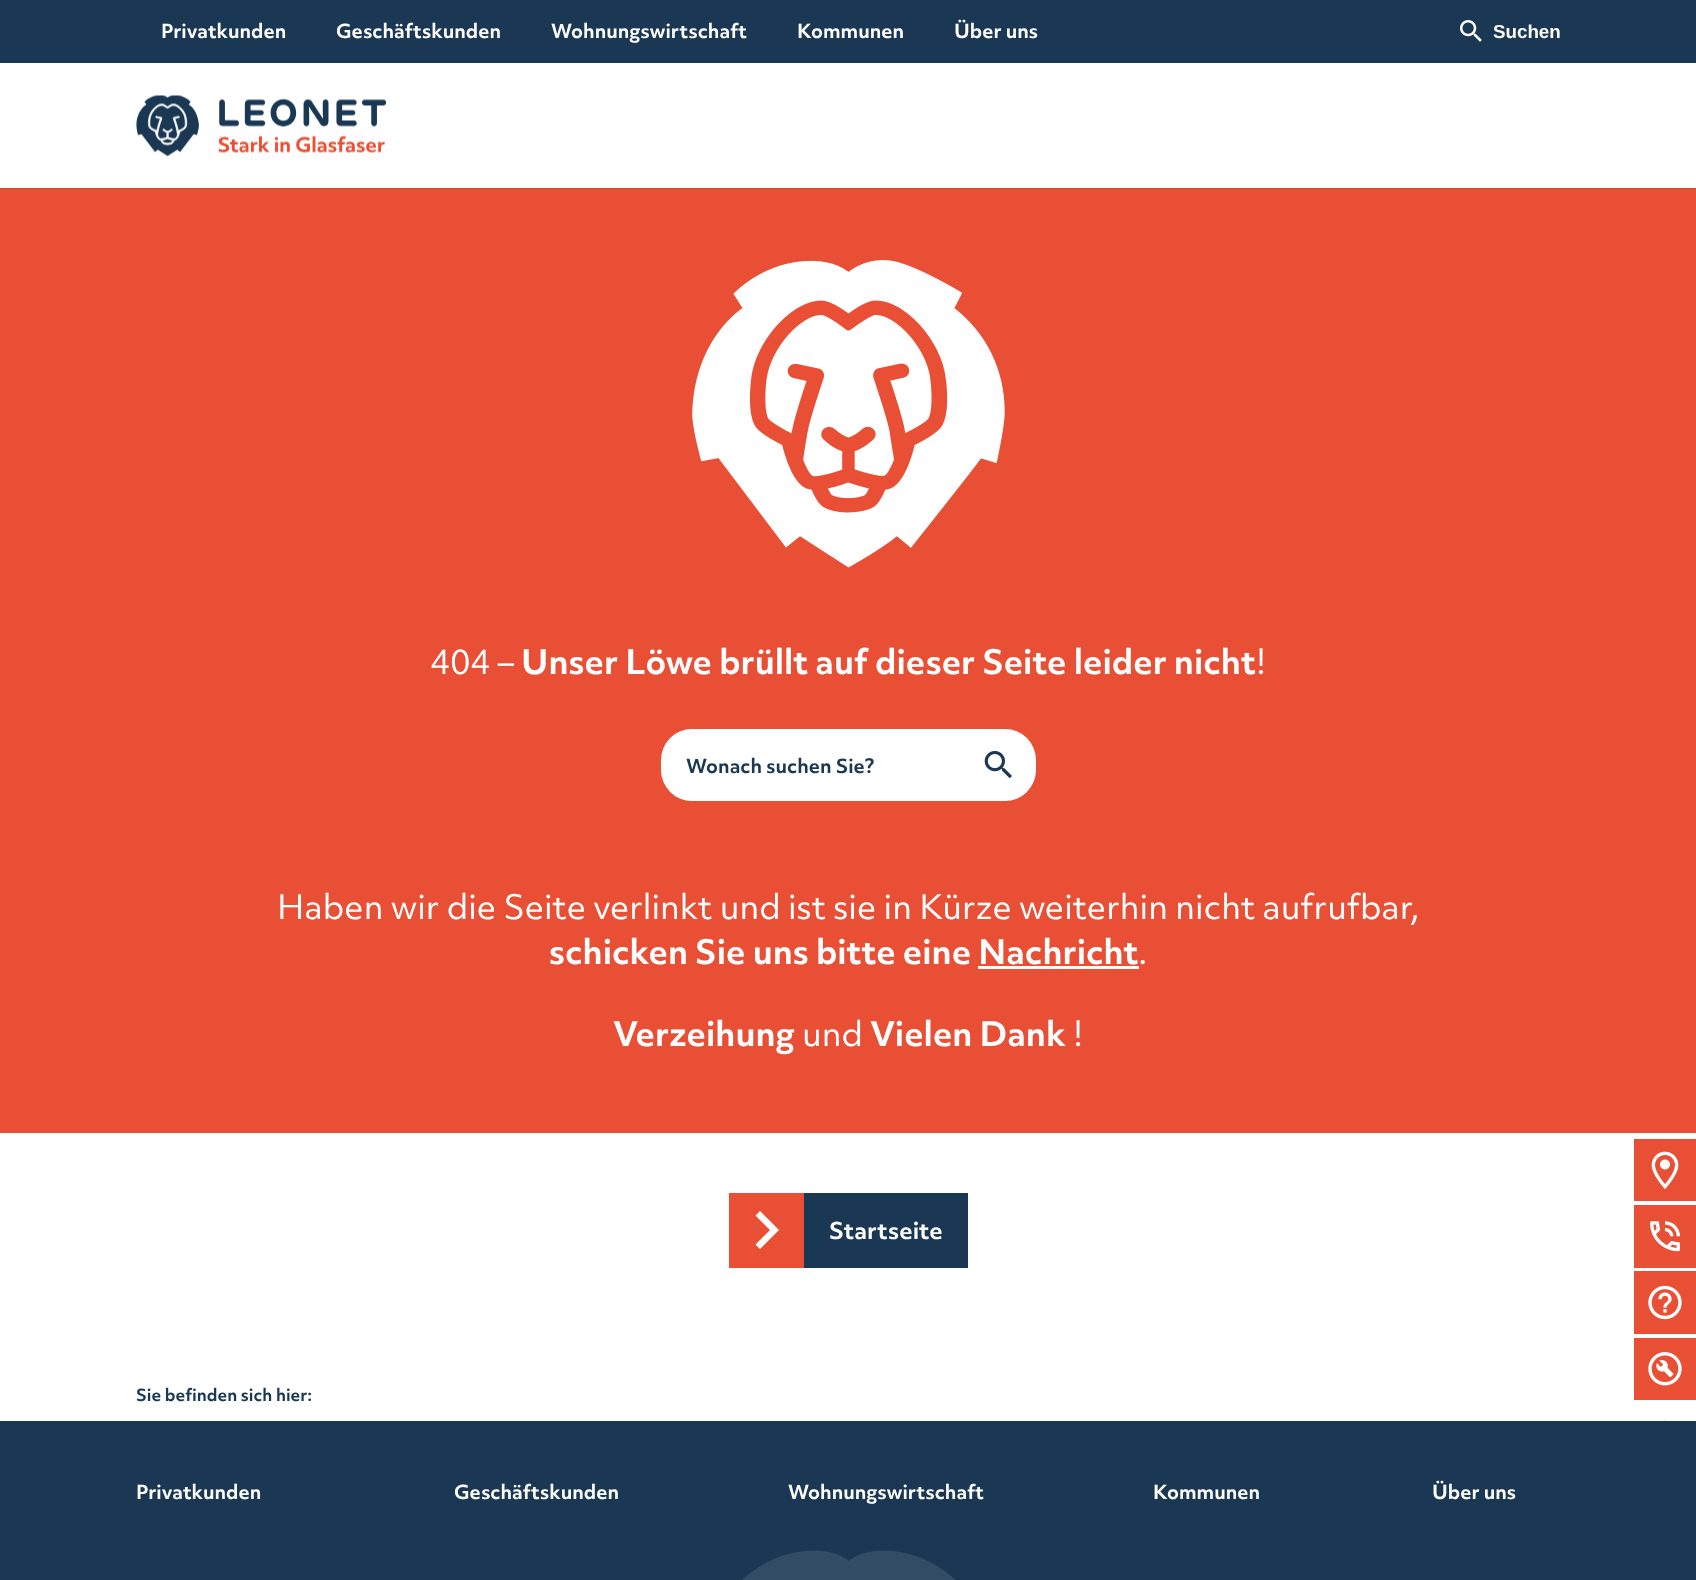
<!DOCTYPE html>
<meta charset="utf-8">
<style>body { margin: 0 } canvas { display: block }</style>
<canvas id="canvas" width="1696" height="1580"></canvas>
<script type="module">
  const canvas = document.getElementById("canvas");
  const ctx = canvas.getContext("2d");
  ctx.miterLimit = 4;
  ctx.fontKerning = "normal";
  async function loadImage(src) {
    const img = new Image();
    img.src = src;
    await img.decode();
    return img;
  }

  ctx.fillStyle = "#ffffff";
  ctx.fillRect(0, 0, 1696, 1580);
  ctx.fillStyle = "#1a3853";
  ctx.fillRect(0, 0, 1696, 63);
  ctx.font = "bold 18.75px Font";
  ctx.fillStyle = "#ffffff";
  ctx.fillText("Privatkunden", 161, 38);
  ctx.fillText("Geschäftskunden", 336, 38);
  ctx.fillText("Wohnungswirtschaft", 551, 38);
  ctx.fillText("Kommunen", 797, 38);
  ctx.fillText("Über uns", 954, 38);
  ctx.drawImage(await loadImage("img1.png"), 1460, 20, 22, 22);
  ctx.font = "bold 18.75px Liberation Sans";
  ctx.fillText("Suchen", 1493, 38);
  ctx.fillStyle = "#d24730";
  ctx.fillRect(0, 188, 1696, 1);
  ctx.drawImage(await loadImage("img2.png"), 136, 95, 250, 62);
  ctx.fillStyle = "#e94f35";
  ctx.fillRect(0, 189, 1696, 944);
  ctx.drawImage(await loadImage("img3.png"), 692, 260, 313, 308);
  ctx.font = "32.5px Font";
  ctx.fillStyle = "#ffffff";
  ctx.fillText("404 –", 430, 674);
  ctx.font = "bold 32.5px Font";
  ctx.fillText("Unser Löwe brüllt auf dieser Seite leider nicht", 521, 674);
  ctx.font = "32.5px Font";
  ctx.fillText("!", 1256, 674);
  ctx.beginPath();
  ctx.roundRect(661, 729, 375, 72, 31);
  ctx.fill();
  ctx.font = "bold 18.75px Font";
  ctx.fillStyle = "#1a3853";
  ctx.fillText("Wonach suchen Sie?", 686, 773);
  ctx.drawImage(await loadImage("img4.png"), 984, 750, 28, 29);
  ctx.font = "32.5px Font";
  ctx.fillStyle = "#ffffff";
  ctx.fillText("Haben wir die Seite verlinkt und ist sie in Kürze weiterhin nicht aufrufbar,", 277, 919);
  ctx.font = "bold 32.5px Font";
  ctx.fillText("schicken Sie uns bitte eine Nachricht", 549, 964);
  ctx.fillRect(978, 966, 161, 3);
  ctx.font = "32.5px Font";
  ctx.fillText(".", 1138, 964);
  ctx.font = "bold 32.5px Font";
  ctx.fillText("Verzeihung", 613, 1046);
  ctx.font = "32.5px Font";
  ctx.fillText("und", 802, 1046);
  ctx.font = "bold 32.5px Font";
  ctx.fillText("Vielen Dank", 870, 1046);
  ctx.font = "32.5px Font";
  ctx.fillText("!", 1073, 1046);
  ctx.fillStyle = "#1a3853";
  ctx.fillRect(804, 1193, 164, 75);
  ctx.fillStyle = "#e94f35";
  ctx.fillRect(729, 1193, 75, 75);
  ctx.fillStyle = "#ffffff";
  ctx.beginPath();
  ctx.moveTo(755.5, 1244.5);
  ctx.lineTo(770, 1230);
  ctx.lineTo(755.5, 1215.5);
  ctx.lineTo(760, 1211);
  ctx.lineTo(779, 1230);
  ctx.lineTo(760, 1249);
  ctx.closePath();
  ctx.fill();
  ctx.font = "bold 22.5px Font";
  ctx.fillText("Startseite", 829, 1239);
  ctx.font = "bold 16.25px Font";
  ctx.fillStyle = "#1a3853";
  ctx.fillText("Sie befinden sich hier:", 136, 1401);
  ctx.fillStyle = "#e94f35";
  ctx.fillRect(1634, 1139, 62, 62);
  ctx.drawImage(await loadImage("img5.png"), 1651, 1151, 28, 38);
  ctx.fillRect(1634, 1205, 62, 63);
  ctx.drawImage(await loadImage("img6.png"), 1650, 1221, 30, 31);
  ctx.fillRect(1634, 1271, 62, 63);
  ctx.drawImage(await loadImage("img7.png"), 1648, 1285, 34, 35);
  ctx.fillRect(1634, 1338, 62, 62);
  ctx.drawImage(await loadImage("img8.png"), 1648, 1352, 34, 34);
  ctx.fillStyle = "#1a3853";
  ctx.fillRect(0, 1421, 1696, 159);
  ctx.beginPath();
  ctx.moveTo(1651.5, 1434);
  ctx.lineTo(1654, 1436);
  ctx.lineTo(1663.5, 1427);
  ctx.lineTo(1663.5, 1447);
  ctx.lineTo(1666.5, 1447);
  ctx.lineTo(1666.5, 1427);
  ctx.lineTo(1676, 1436);
  ctx.lineTo(1678.5, 1434);
  ctx.lineTo(1665, 1420.5);
  ctx.closePath();
  ctx.fill();
  ctx.drawImage(await loadImage("img9.png"), 742, 1550, 213, 30);
  ctx.font = "bold 18.75px Font";
  ctx.fillStyle = "#ffffff";
  ctx.fillText("Privatkunden", 136, 1499);
  ctx.fillText("Geschäftskunden", 454, 1499);
  ctx.fillText("Wohnungswirtschaft", 788, 1499);
  ctx.fillText("Kommunen", 1153, 1499);
  ctx.fillText("Über uns", 1432, 1499);
</script>
